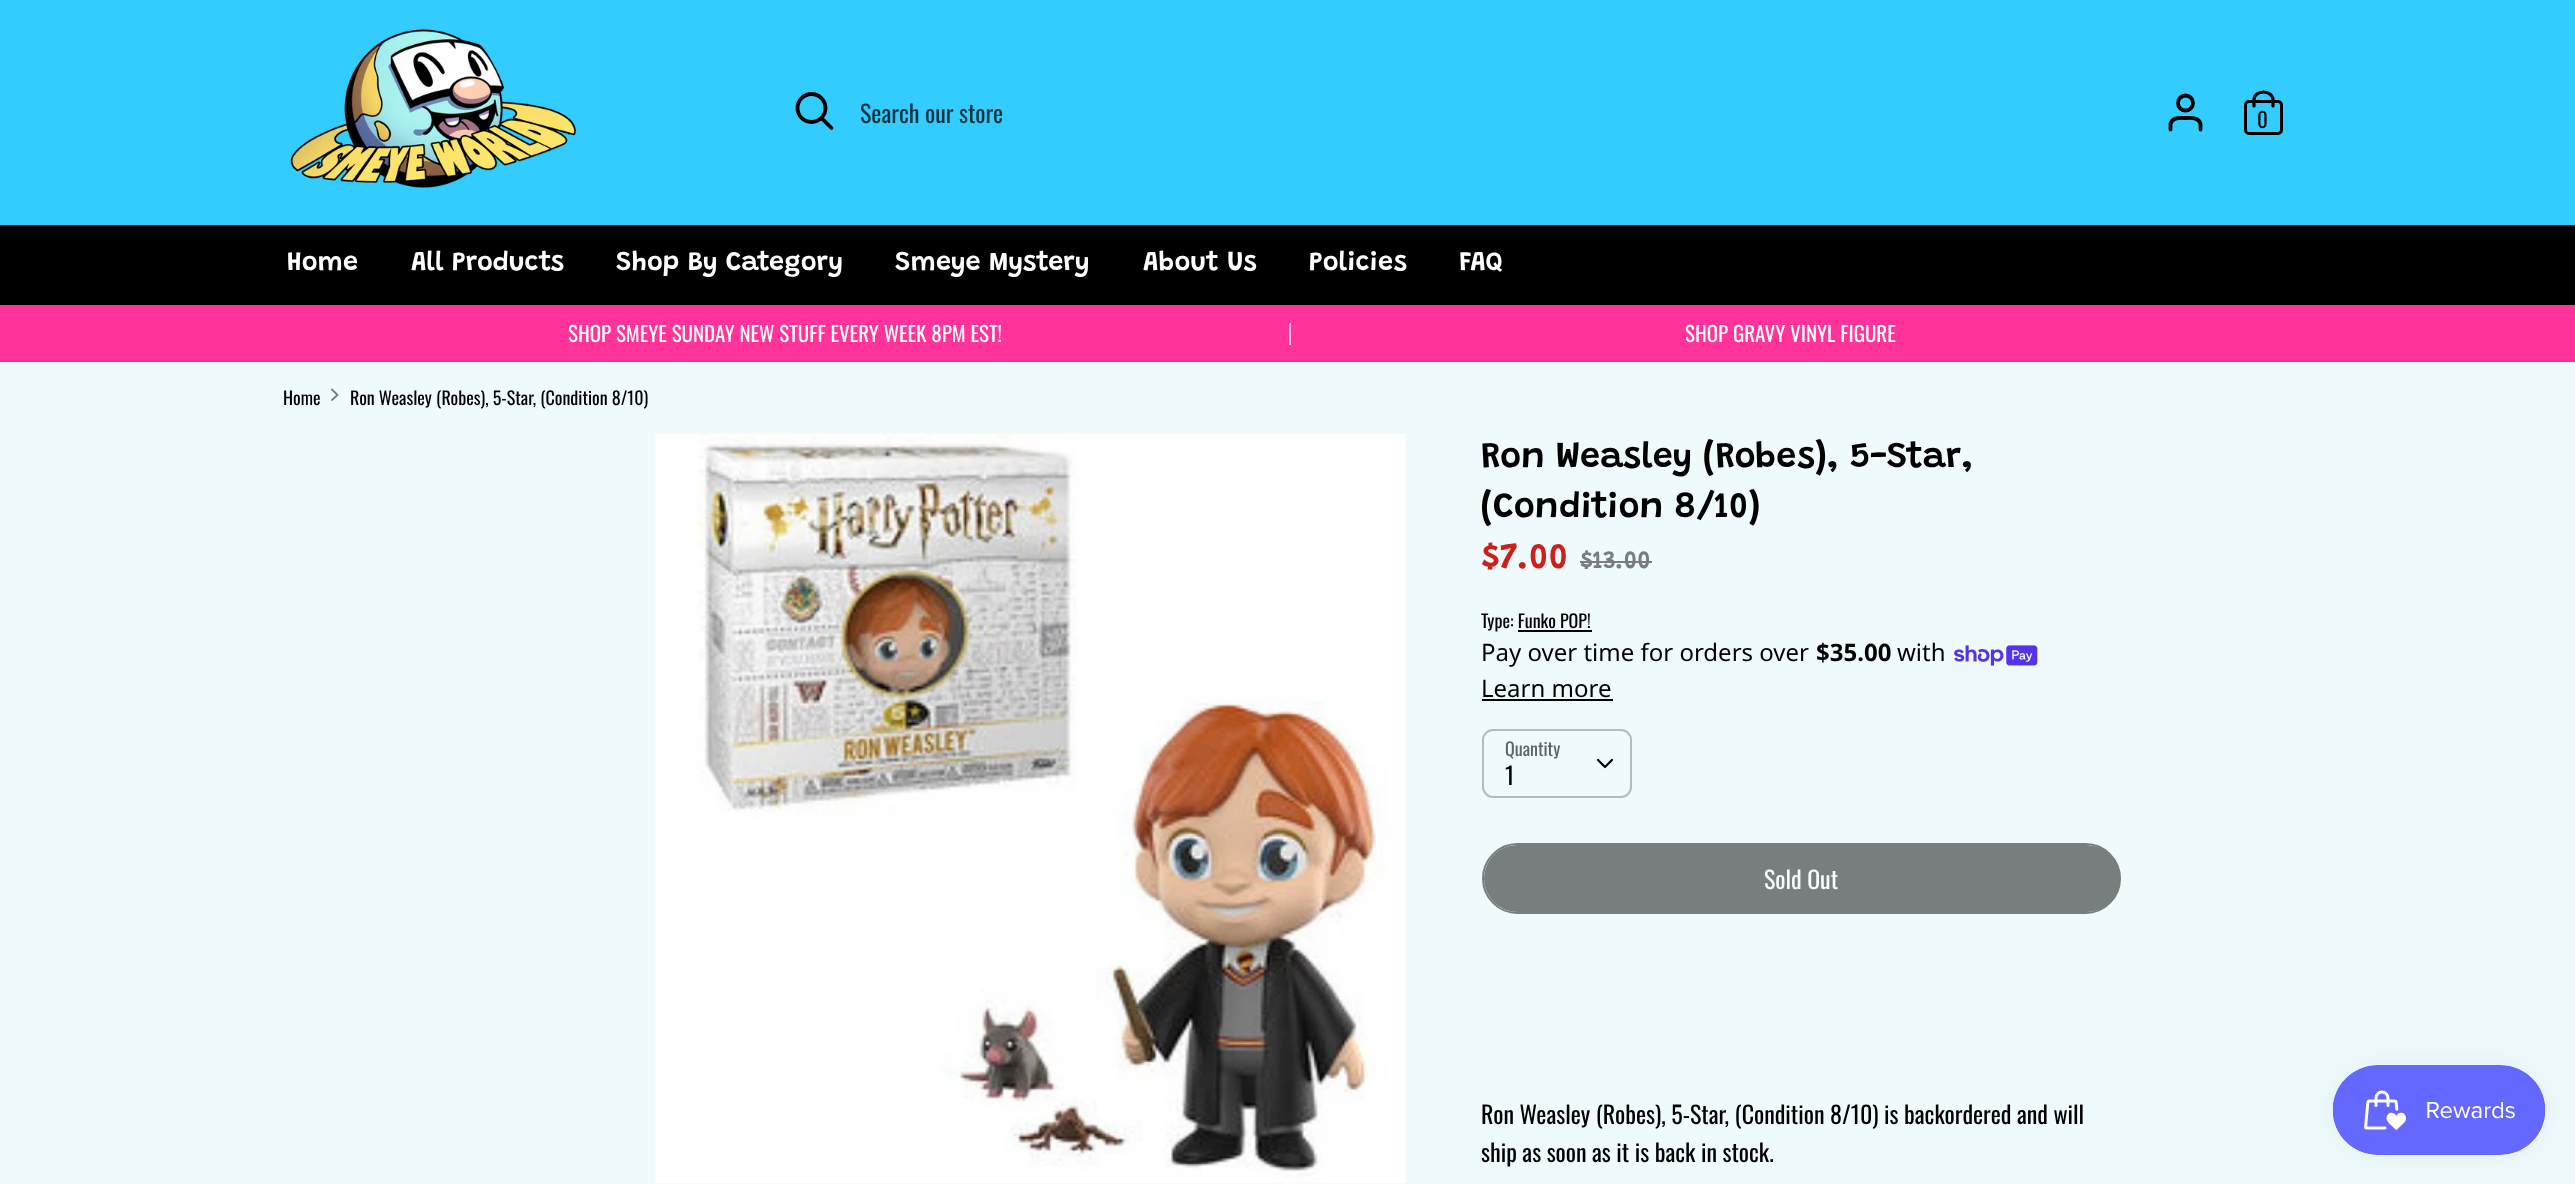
<!DOCTYPE html>
<meta charset="utf-8">
<style>body { margin: 0 } canvas { display: block }</style>
<canvas id="canvas" width="2575" height="1184"></canvas>
<script type="module">
  const canvas = document.getElementById("canvas");
  const ctx = canvas.getContext("2d");
  ctx.miterLimit = 4;
  ctx.fontKerning = "normal";
  async function loadImage(src) {
    const img = new Image();
    img.src = src;
    await img.decode();
    return img;
  }

  ctx.fillStyle = "#effafc";
  ctx.fillRect(0, 0, 2575, 1184);
  ctx.fillStyle = "#33ccff";
  ctx.fillRect(0, 0, 2575, 225);
  ctx.drawImage(await loadImage("img1.png"), 290, 29, 286, 159);
  ctx.beginPath();
  ctx.arc(811.5, 108, 14, 0, Math.PI * 2);
  ctx.strokeStyle = "#000000";
  ctx.lineWidth = 3.8;
  ctx.stroke();
  ctx.beginPath();
  ctx.moveTo(831.5, 128);
  ctx.lineTo(821.5, 118);
  ctx.lineCap = "round";
  ctx.stroke();
  ctx.font = "24px Oswald";
  ctx.fillStyle = "#0d3340";
  ctx.fillText("Search our store", 860, 123);
  ctx.beginPath();
  ctx.moveTo(2200.5, 129.5);
  ctx.lineTo(2200.5, 124);
  ctx.bezierCurveTo(2199, 117, 2191, 118, 2185.5, 118);
  ctx.bezierCurveTo(2180, 118, 2172, 117, 2170.5, 124);
  ctx.lineTo(2170.5, 129.5);
  ctx.stroke();
  ctx.beginPath();
  ctx.arc(2185.5, 103, 7.5, 0, Math.PI * 2);
  ctx.stroke();
  ctx.beginPath();
  ctx.roundRect(2245.5, 101.5, 36, 32, 3.5);
  ctx.lineWidth = 3;
  ctx.stroke();
  ctx.beginPath();
  ctx.moveTo(2254, 106);
  ctx.lineTo(2254, 99.5);
  ctx.bezierCurveTo(2254, 95.5, 2258, 92, 2263.5, 92);
  ctx.bezierCurveTo(2268.5, 92, 2273, 95.5, 2273, 99.5);
  ctx.lineTo(2273, 106);
  ctx.lineWidth = 3.2;
  ctx.stroke();
  ctx.font = "21px Oswald";
  ctx.fillStyle = "#000000";
  ctx.fillText("0", 2257, 128);
  ctx.fillRect(0, 225, 2575, 80);
  ctx.font = "600 27px Grandstander";
  ctx.fillStyle = "#ffffff";
  ctx.fillText("Home", 287, 270);
  ctx.fillText("All Products", 411, 270);
  ctx.fillText("Shop By Category", 616, 270);
  ctx.fillText("Smeye Mystery", 895, 270);
  ctx.fillText("About Us", 1143, 270);
  ctx.fillText("Policies", 1309, 270);
  ctx.fillText("FAQ", 1459, 270);
  ctx.fillStyle = "#ff3399";
  ctx.fillRect(0, 305, 2575, 57);
  ctx.font = "21px Oswald";
  ctx.fillStyle = "#ffffff";
  ctx.fillText("SHOP SMEYE SUNDAY NEW STUFF EVERY WEEK 8PM EST!", 568, 342);
  ctx.fillStyle = "#ffc2e0";
  ctx.fillRect(1289, 323, 2, 22);
  ctx.fillStyle = "#ffffff";
  ctx.fillText("SHOP GRAVY VINYL FIGURE", 1685, 342);
  ctx.font = "18px Oswald";
  ctx.fillStyle = "#000000";
  ctx.fillText("Home", 283, 405);
  ctx.beginPath();
  ctx.moveTo(332, 400);
  ctx.lineTo(337.5, 395);
  ctx.lineTo(332, 389.5);
  ctx.strokeStyle = "#787d7e";
  ctx.lineWidth = 1.8;
  ctx.stroke();
  ctx.fillText("Ron Weasley (Robes), 5-Star, (Condition 8/10)", 350, 405);
  ctx.drawImage(await loadImage("img2.png"), 655, 433, 751, 751);
  ctx.font = "600 36px Grandstander";
  ctx.fillText("Ron Weasley (Robes), 5-Star,", 1481, 467);
  ctx.fillText("(Condition 8/10)", 1481, 517);
  ctx.fillStyle = "#cd201a";
  ctx.fillText("$7.00", 1481, 568);
  ctx.font = "600 25px Grandstander";
  ctx.fillStyle = "#787d7e";
  ctx.fillText("$13.00", 1580, 568);
  ctx.fillRect(1580, 561, 72, 2);
  ctx.font = "18px Oswald";
  ctx.fillStyle = "#000000";
  ctx.fillText("Type: Funko POP!", 1481, 628);
  ctx.fillRect(1518, 630, 74, 2);
  ctx.font = "24px Noto Sans";
  ctx.fillText("Pay over time for orders over", 1481, 661);
  ctx.font = "bold 24px Noto Sans";
  ctx.fillText("$35.00", 1816, 661);
  ctx.font = "24px Noto Sans";
  ctx.fillText("with", 1897, 661);
  ctx.drawImage(await loadImage("img3.png"), 1954, 645, 84, 21);
  ctx.fillText("Learn more", 1481, 697);
  ctx.fillRect(1482, 699, 131, 2);
  ctx.beginPath();
  ctx.roundRect(1483, 730, 148, 67, 10);
  ctx.strokeStyle = "#b3bbbd";
  ctx.lineWidth = 2;
  ctx.stroke();
  ctx.font = "18px Oswald";
  ctx.fillStyle = "#5f6464";
  ctx.fillText("Quantity", 1505, 756);
  ctx.beginPath();
  ctx.moveTo(1598, 760);
  ctx.lineTo(1605, 767);
  ctx.lineTo(1612, 760);
  ctx.strokeStyle = "#000000";
  ctx.lineWidth = 2.2;
  ctx.lineJoin = "round";
  ctx.stroke();
  ctx.font = "24px Oswald";
  ctx.fillStyle = "#000000";
  ctx.fillText("1", 1505, 785);
  ctx.beginPath();
  ctx.roundRect(1483, 844, 637, 69, 34.5);
  ctx.strokeStyle = "#787d7e";
  ctx.lineWidth = 2;
  ctx.lineJoin = "miter";
  ctx.stroke();
  ctx.fillStyle = "#787d7e";
  ctx.beginPath();
  ctx.roundRect(1484, 845, 636, 67, 33.5);
  ctx.fill();
  ctx.fillStyle = "#f7fdfe";
  ctx.fillText("Sold Out", 1764, 889);
  ctx.fillStyle = "#000000";
  ctx.fillText("Ron Weasley (Robes), 5-Star, (Condition 8/10) is backordered and will", 1481, 1124);
  ctx.fillText("ship as soon as it is back in stock.", 1481, 1162);
  ctx.fillStyle = "rgba(0, 0, 0, 0.05)";
  ctx.filter = "blur(19px)";
  ctx.beginPath();
  ctx.roundRect(2333, 1065, 213, 90, 45);
  ctx.fill();
  ctx.filter = "none";
  ctx.drawImage(await loadImage("img4.png"), 2332, 1065, 214, 90);
</script>
